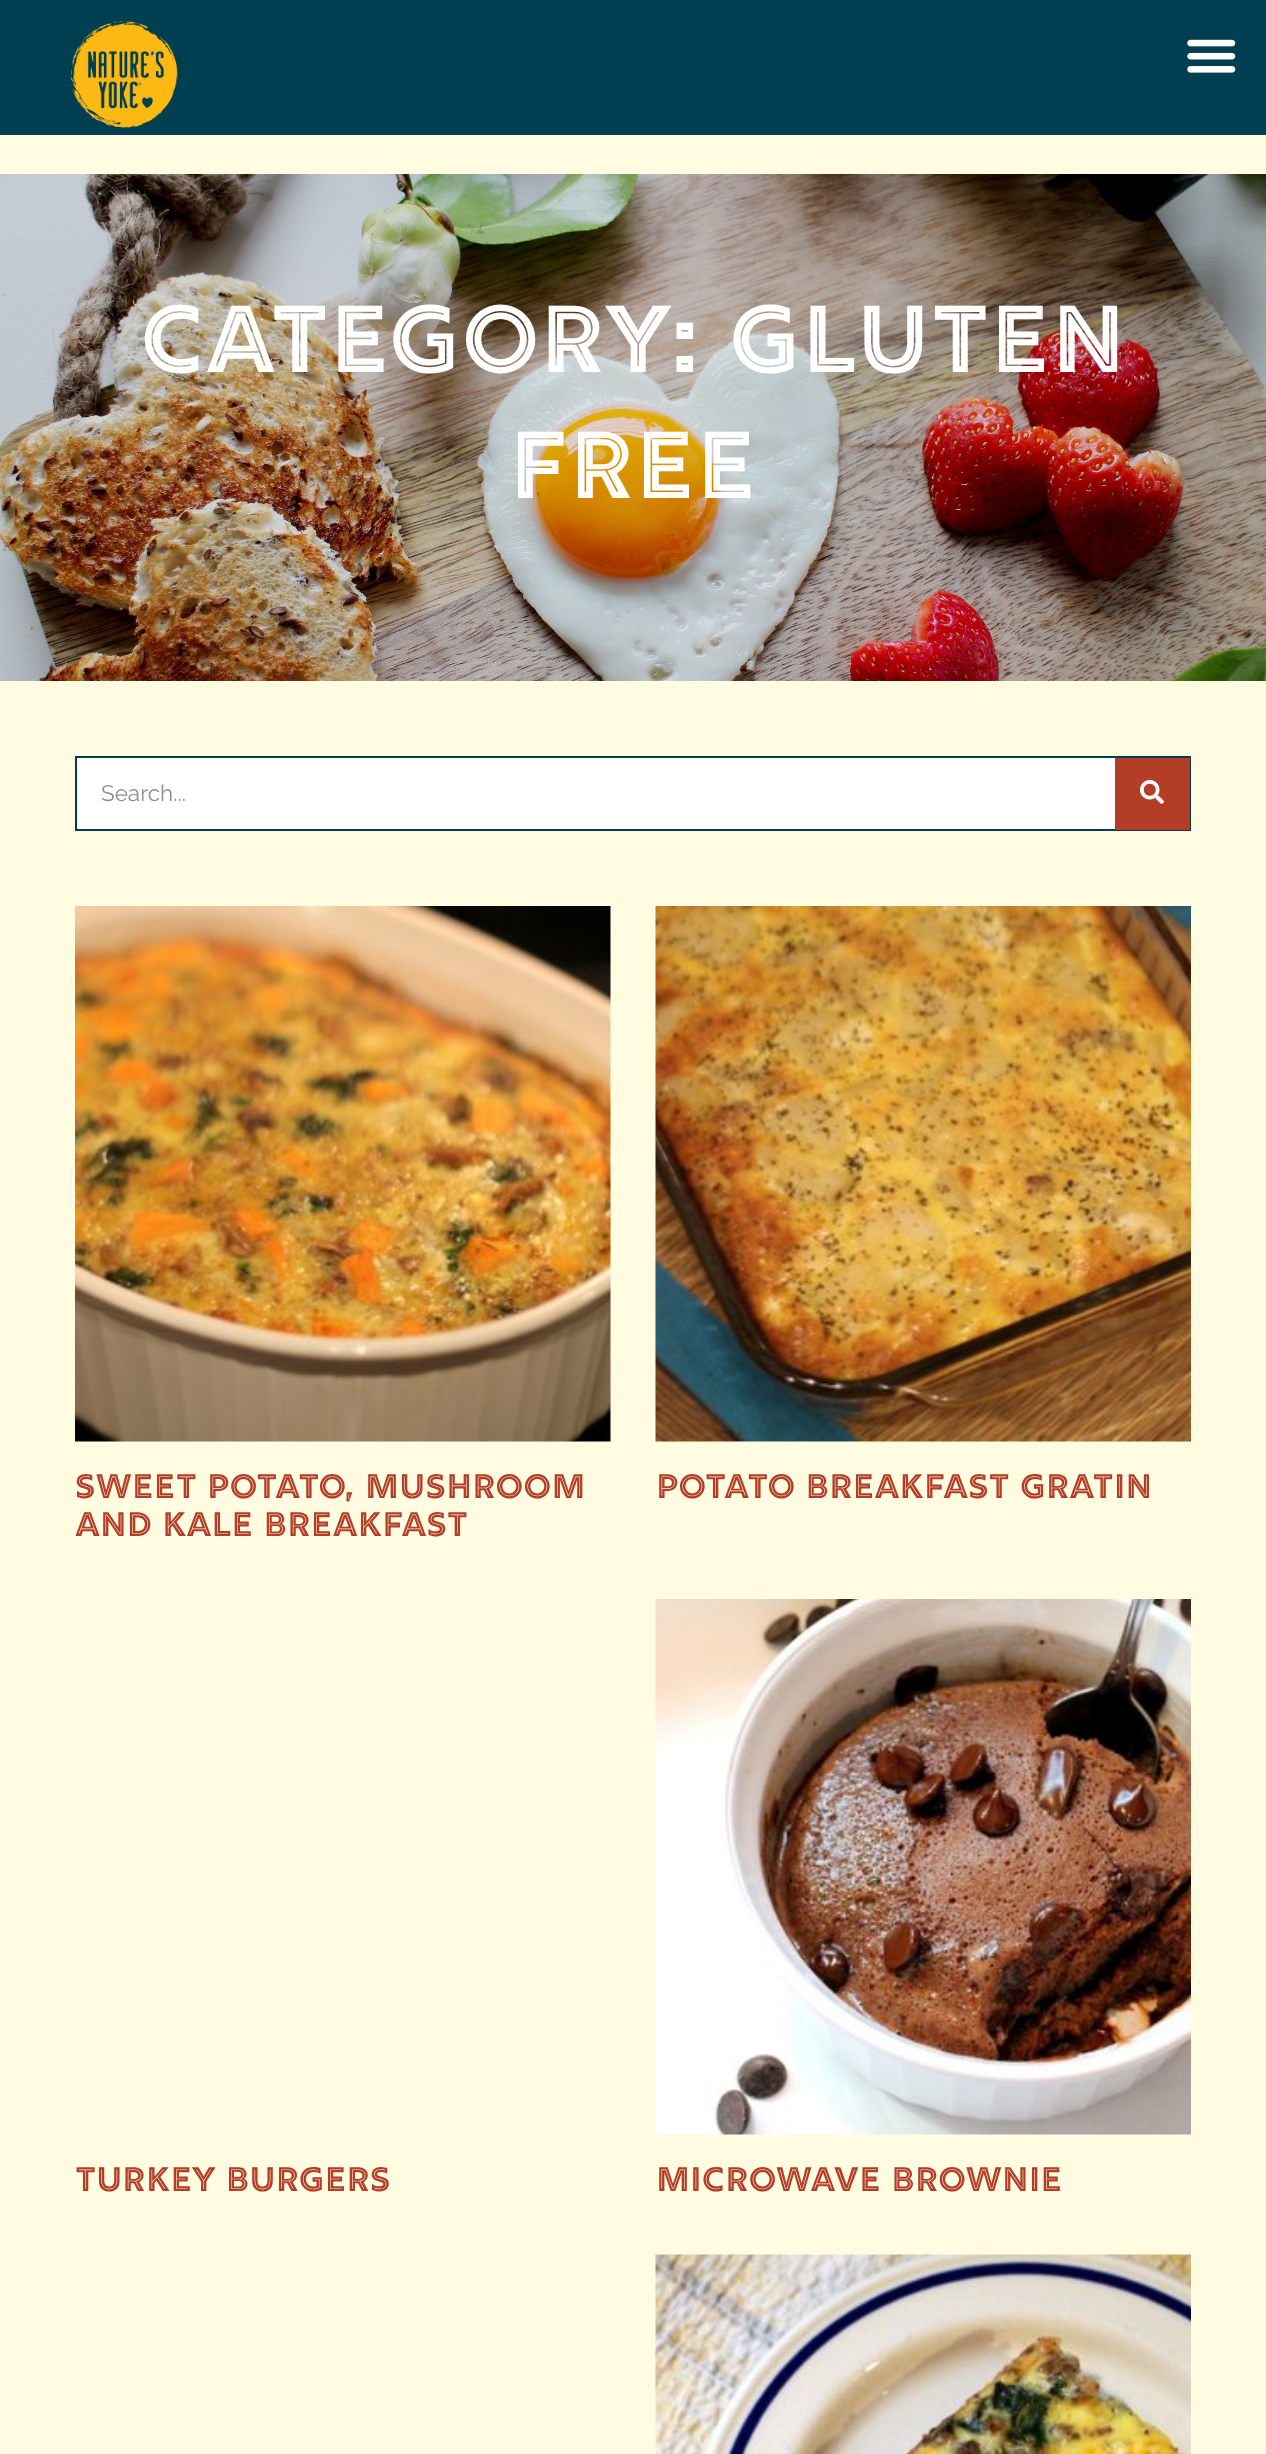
<!DOCTYPE html>
<meta charset="utf-8">
<style>body { margin: 0 } canvas { display: block }</style>
<canvas id="canvas" width="1266" height="2454"></canvas>
<script type="module">
  const canvas = document.getElementById("canvas");
  const ctx = canvas.getContext("2d");
  ctx.miterLimit = 4;
  ctx.fontKerning = "normal";
  async function loadImage(src) {
    const img = new Image();
    img.src = src;
    await img.decode();
    return img;
  }

  ctx.fillStyle = "#fffce2";
  ctx.fillRect(0, 0, 1266, 2454);
  ctx.fillStyle = "#003e51";
  ctx.fillRect(0, 0, 1266, 135);
  ctx.drawImage(await loadImage("img1.png"), 71, 21, 107, 107);
  ctx.drawImage(await loadImage("img2.png"), 1187, 39, 49, 34);
  ctx.drawImage(await loadImage("img3.png"), 0, 174, 1266, 507);
  ctx.font = "bold 105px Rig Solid";
  ctx.fillStyle = "#ffffff";
  ctx.fillText("CATEGORY: GLUTEN", 140, 372);
  ctx.fillText("FREE", 509, 498);
  ctx.fillRect(77, 758, 1038, 71);
  ctx.strokeStyle = "#003e51";
  ctx.lineWidth = 2;
  ctx.strokeRect(76, 757, 1114, 73);
  ctx.font = "22.5px Raleway";
  ctx.fillStyle = "#8c8f93";
  ctx.fillText("Search...", 101, 801);
  ctx.fillStyle = "#b33d26";
  ctx.fillRect(1115, 758, 75, 72);
  ctx.drawImage(await loadImage("img4.png"), 1140, 780, 24, 24);
  ctx.drawImage(await loadImage("img5.png"), 75, 906, 536, 536);
  ctx.font = "bold 37.5px Rig Solid";
  ctx.fillText("SWEET POTATO, MUSHROOM", 75, 1498);
  ctx.fillText("AND KALE BREAKFAST", 75, 1536);
  ctx.drawImage(await loadImage("img6.png"), 655, 906, 536, 536);
  ctx.fillText("POTATO BREAKFAST GRATIN", 656, 1498);
  ctx.fillText("TURKEY BURGERS", 75, 2191);
  ctx.drawImage(await loadImage("img7.png"), 655, 1599, 536, 536);
  ctx.fillText("MICROWAVE BROWNIE", 656, 2191);
  ctx.drawImage(await loadImage("img8.png"), 655, 2254, 536, 200);
</script>
